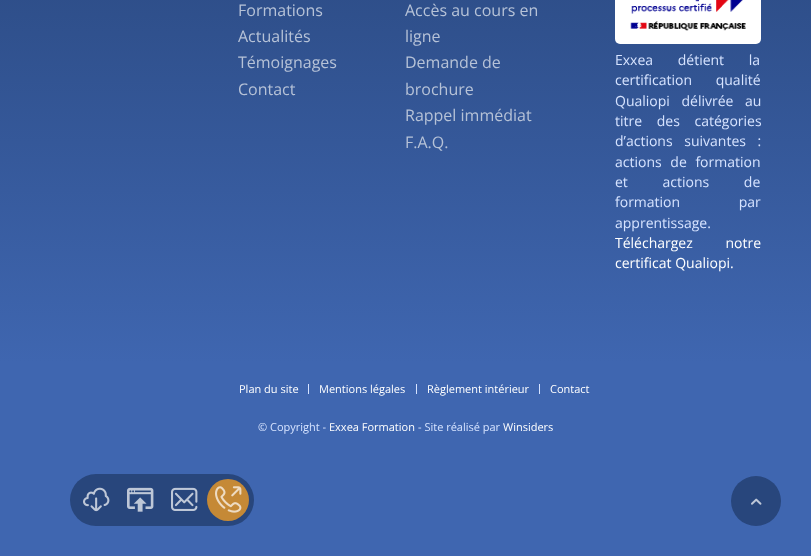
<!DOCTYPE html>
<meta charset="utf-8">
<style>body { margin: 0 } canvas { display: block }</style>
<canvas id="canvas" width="811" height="556"></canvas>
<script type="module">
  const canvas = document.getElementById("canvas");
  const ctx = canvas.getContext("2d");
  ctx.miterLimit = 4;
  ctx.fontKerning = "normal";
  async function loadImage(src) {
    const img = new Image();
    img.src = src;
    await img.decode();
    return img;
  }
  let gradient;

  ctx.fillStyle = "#ffffff";
  ctx.fillRect(0, 0, 811, 556);
  gradient = ctx.createLinearGradient(406, 363, 406, -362);
  gradient.addColorStop(0, "#3f66b0");
  gradient.addColorStop(1, "#1e3865");
  ctx.fillStyle = gradient;
  ctx.fillRect(0, 0, 811, 363);
  ctx.font = "16px Open Sans";
  ctx.fillStyle = "#b6c2d7";
  ctx.fillText("Formations", 238, 16);
  ctx.fillText("Actualités", 238, 42);
  ctx.fillText("Témoignages", 238, 68);
  ctx.fillText("Contact", 238, 95);
  ctx.fillText("Accès au cours en", 405, 16);
  ctx.fillText("ligne", 405, 42);
  ctx.fillText("Demande de", 405, 68);
  ctx.fillText("brochure", 405, 95);
  ctx.fillText("Rappel immédiat", 405, 121);
  ctx.fillText("F.A.Q.", 405, 148);
  ctx.drawImage(await loadImage("img1.png"), 615, 0, 146, 44);
  ctx.wordSpacing = "21px";
  ctx.font = "14px Open Sans";
  ctx.fillStyle = "#d6e3ff";
  ctx.fillText("Exxea détient la", 615, 65);
  ctx.wordSpacing = "20px";
  ctx.fillText("certification qualité", 615, 85);
  ctx.wordSpacing = "8px";
  ctx.fillText("Qualiopi délivrée au", 615, 106);
  ctx.wordSpacing = "11px";
  ctx.fillText("titre des catégories", 615, 126);
  ctx.wordSpacing = "8px";
  ctx.fillText("d’actions suivantes :", 615, 146);
  ctx.wordSpacing = "5px";
  ctx.fillText("actions de formation", 615, 167);
  ctx.wordSpacing = "31px";
  ctx.fillText("et actions de", 615, 187);
  ctx.wordSpacing = "55px";
  ctx.fillText("formation par", 615, 207);
  ctx.wordSpacing = "0px";
  ctx.fillText("apprentissage.", 615, 228);
  ctx.wordSpacing = "29px";
  ctx.fillStyle = "#ffffff";
  ctx.fillText("Téléchargez notre", 615, 248);
  ctx.wordSpacing = "0px";
  ctx.fillText("certificat Qualiopi.", 615, 268);
  ctx.fillStyle = "#3f66b0";
  ctx.fillRect(0, 363, 811, 193);
  ctx.font = "11px Open Sans";
  ctx.fillStyle = "#ffffff";
  ctx.fillText("Plan du site", 239, 393);
  ctx.fillStyle = "#d6e3ff";
  ctx.fillRect(308, 384, 1, 10);
  ctx.fillStyle = "#ffffff";
  ctx.fillText("Mentions légales", 319, 393);
  ctx.fillStyle = "#d6e3ff";
  ctx.fillRect(416, 384, 1, 10);
  ctx.fillStyle = "#ffffff";
  ctx.fillText("Règlement intérieur", 427, 393);
  ctx.fillStyle = "#d6e3ff";
  ctx.fillRect(539, 384, 1, 10);
  ctx.fillStyle = "#ffffff";
  ctx.fillText("Contact", 550, 393);
  ctx.fillStyle = "#d6e3ff";
  ctx.fillText("© Copyright -", 258, 431);
  ctx.fillStyle = "#ffffff";
  ctx.fillText("Exxea Formation", 329, 431);
  ctx.fillStyle = "#d6e3ff";
  ctx.fillText("- Site réalisé par", 418, 431);
  ctx.fillStyle = "#ffffff";
  ctx.fillText("Winsiders", 503, 431);
  ctx.fillStyle = "#28467c";
  ctx.beginPath();
  ctx.roundRect(70, 474, 184, 52, 26);
  ctx.fill();
  ctx.drawImage(await loadImage("img2.png"), 83, 487, 27, 25);
  ctx.drawImage(await loadImage("img3.png"), 127, 487, 27, 25);
  ctx.drawImage(await loadImage("img4.png"), 171, 487, 27, 24);
  ctx.fillStyle = "#c58936";
  ctx.beginPath();
  ctx.arc(228, 500, 21, 0, Math.PI * 2);
  ctx.fill();
  ctx.drawImage(await loadImage("img5.png"), 215, 486, 27, 27);
  ctx.fillStyle = "#28467c";
  ctx.beginPath();
  ctx.arc(756, 501, 25, 0, Math.PI * 2);
  ctx.fill();
  ctx.drawImage(await loadImage("img6.png"), 751, 498, 11, 7);
</script>
